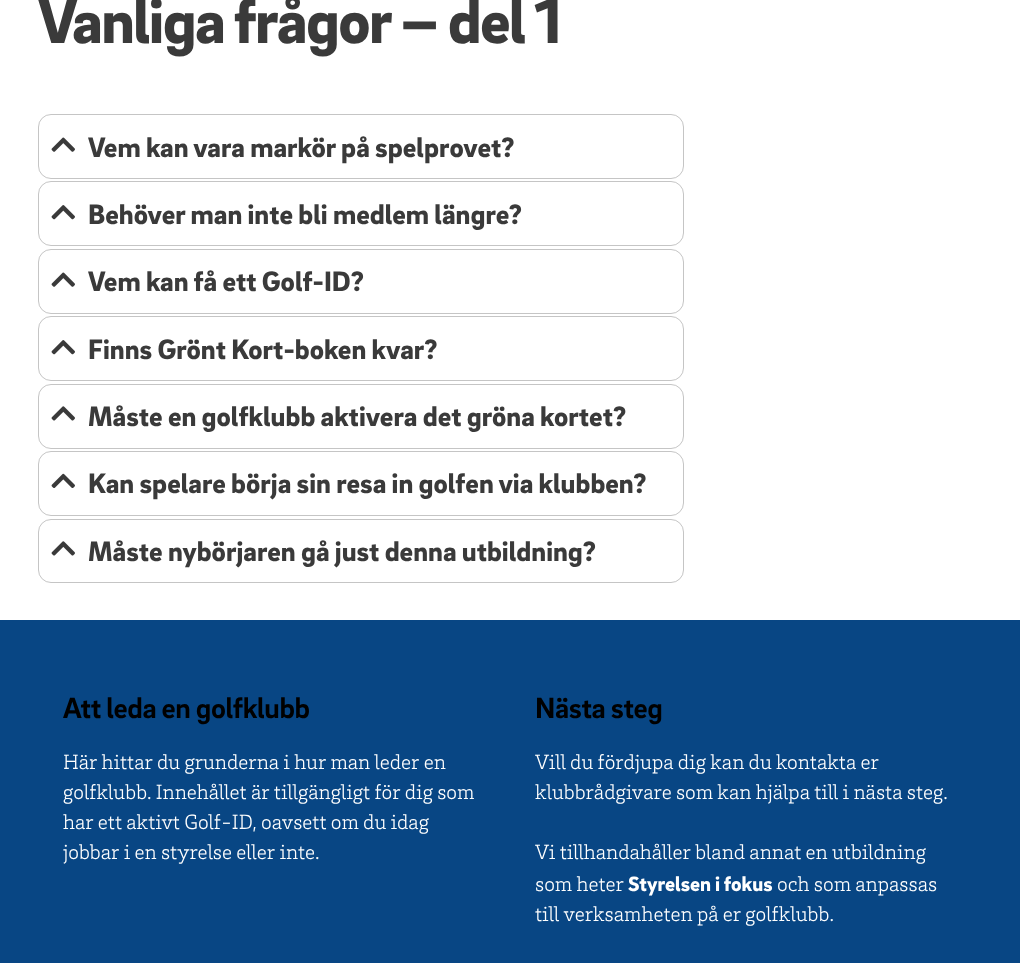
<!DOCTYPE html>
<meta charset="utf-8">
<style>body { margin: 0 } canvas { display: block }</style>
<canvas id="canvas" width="1020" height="963"></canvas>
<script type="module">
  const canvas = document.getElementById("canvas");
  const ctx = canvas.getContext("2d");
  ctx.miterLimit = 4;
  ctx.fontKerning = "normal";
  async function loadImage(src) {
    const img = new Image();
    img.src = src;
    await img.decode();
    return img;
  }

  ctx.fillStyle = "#ffffff";
  ctx.fillRect(0, 0, 1020, 963);
  ctx.letterSpacing = "-1.6px";
  ctx.font = "900 65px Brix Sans";
  ctx.fillStyle = "#3a3a3a";
  ctx.fillText("Vanliga frågor – del 1", 38, 43);
  ctx.beginPath();
  ctx.roundRect(38.5, 114.5, 645, 64, 12.5);
  ctx.strokeStyle = "#c5c5c5";
  ctx.stroke();
  ctx.drawImage(await loadImage("img1.png"), 51, 137, 24, 15);
  ctx.letterSpacing = "0px";
  ctx.font = "900 28.75px Brix Sans";
  ctx.fillText("Vem kan vara markör på spelprovet?", 88, 157);
  ctx.beginPath();
  ctx.roundRect(38.5, 181.5, 645, 64, 12.5);
  ctx.stroke();
  ctx.drawImage(await loadImage("img2.png"), 51, 205, 24, 15);
  ctx.fillText("Behöver man inte bli medlem längre?", 88, 224);
  ctx.beginPath();
  ctx.roundRect(38.5, 249.5, 645, 64, 12.5);
  ctx.stroke();
  ctx.drawImage(await loadImage("img1.png"), 51, 272, 24, 15);
  ctx.fillText("Vem kan få ett Golf-ID?", 88, 291);
  ctx.beginPath();
  ctx.roundRect(38.5, 316.5, 645, 64, 12.5);
  ctx.stroke();
  ctx.drawImage(await loadImage("img2.png"), 51, 340, 24, 15);
  ctx.fillText("Finns Grönt Kort-boken kvar?", 88, 359);
  ctx.beginPath();
  ctx.roundRect(38.5, 384.5, 645, 64, 12.5);
  ctx.stroke();
  ctx.drawImage(await loadImage("img3.png"), 51, 406, 24, 15);
  ctx.fillText("Måste en golfklubb aktivera det gröna kortet?", 88, 426);
  ctx.beginPath();
  ctx.roundRect(38.5, 451.5, 645, 64, 12.5);
  ctx.stroke();
  ctx.drawImage(await loadImage("img4.png"), 51, 473, 24, 15);
  ctx.fillText("Kan spelare börja sin resa in golfen via klubben?", 88, 493);
  ctx.beginPath();
  ctx.roundRect(38.5, 519.5, 645, 63, 12.5);
  ctx.stroke();
  ctx.drawImage(await loadImage("img3.png"), 51, 541, 24, 15);
  ctx.fillText("Måste nybörjaren gå just denna utbildning?", 88, 561);
  ctx.fillStyle = "#084684";
  ctx.fillRect(0, 620, 1020, 343);
  ctx.letterSpacing = "-0.4px";
  ctx.font = "bold 30px Brix Sans";
  ctx.fillStyle = "#000000";
  ctx.fillText("Att leda en golfklubb", 63, 718);
  ctx.letterSpacing = "0px";
  ctx.font = "300 21.25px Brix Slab";
  ctx.fillStyle = "#ffffff";
  ctx.fillText("Här hittar du grunderna i hur man leder en", 63, 769);
  ctx.fillText("golfklubb. Innehållet är tillgängligt för dig som", 63, 799);
  ctx.fillText("har ett aktivt Golf-ID, oavsett om du idag", 63, 829);
  ctx.fillText("jobbar i en styrelse eller inte.", 63, 859);
  ctx.letterSpacing = "-0.4px";
  ctx.font = "bold 30px Brix Sans";
  ctx.fillStyle = "#000000";
  ctx.fillText("Nästa steg", 535, 718);
  ctx.letterSpacing = "0px";
  ctx.font = "300 21.25px Brix Slab";
  ctx.fillStyle = "#ffffff";
  ctx.fillText("Vill du fördjupa dig kan du kontakta er", 535, 769);
  ctx.fillText("klubbrådgivare som kan hjälpa till i nästa steg.", 535, 799);
  ctx.fillText("Vi tillhandahåller bland annat en utbildning", 535, 859);
  ctx.fillText("som heter", 535, 891);
  ctx.font = "900 21.25px Brix Sans";
  ctx.fillText("Styrelsen i fokus", 628, 891);
  ctx.font = "300 21.25px Brix Slab";
  ctx.fillText("och som anpassas", 777, 891);
  ctx.fillText("till verksamheten på er golfklubb.", 535, 921);
</script>
